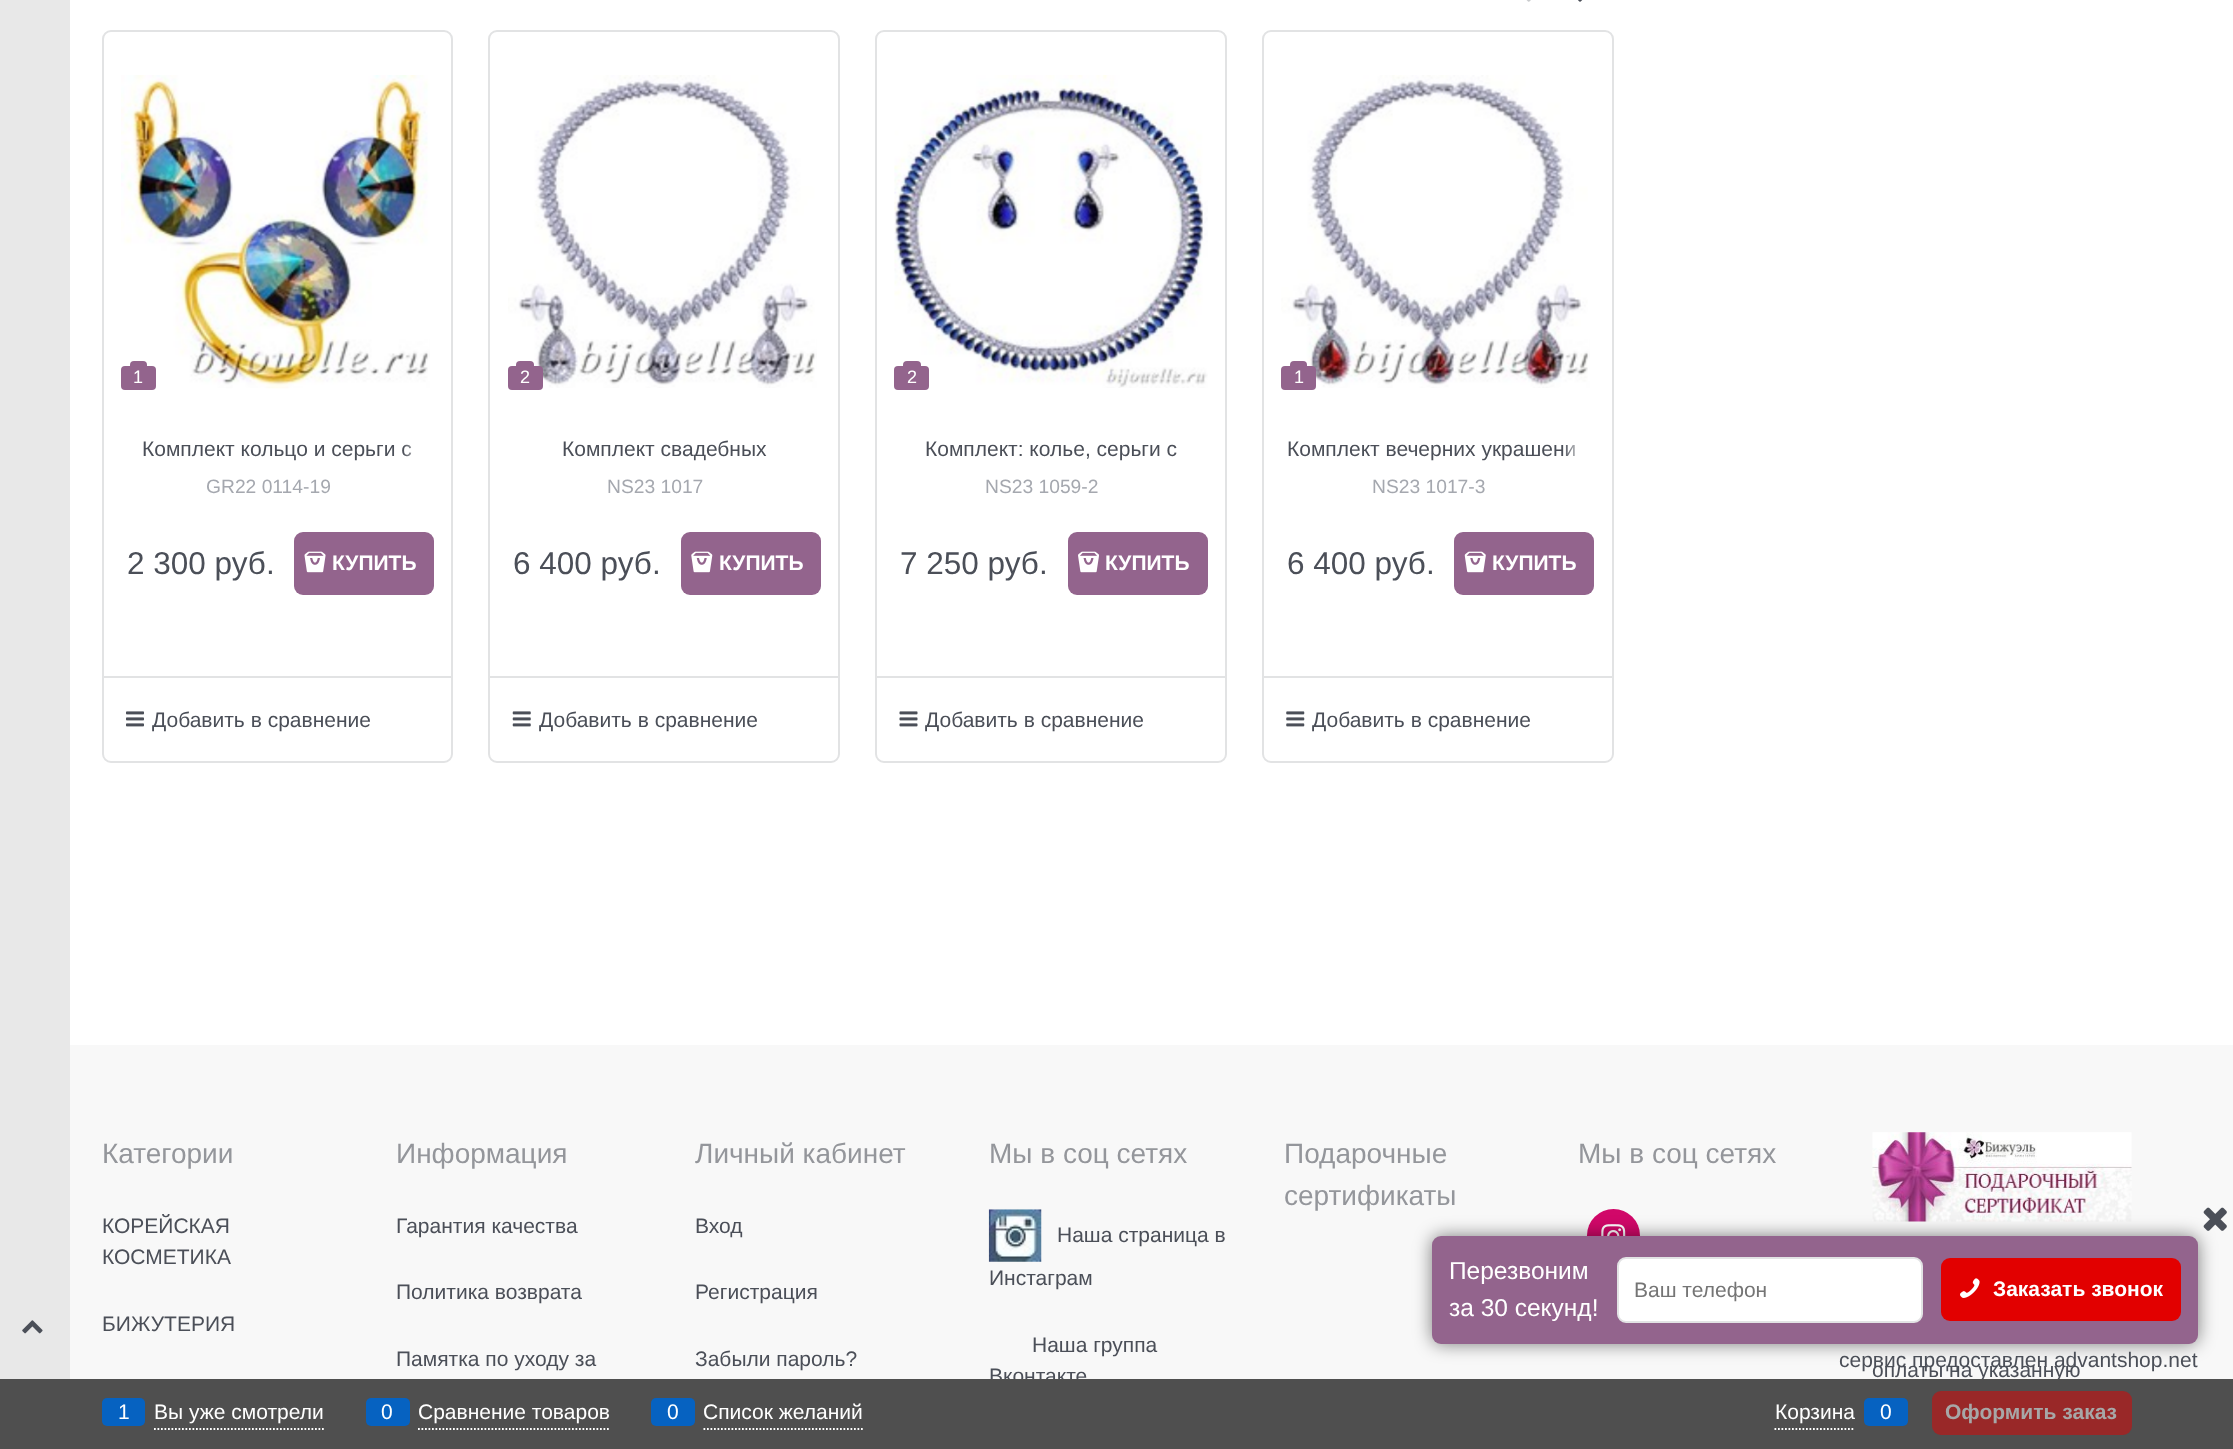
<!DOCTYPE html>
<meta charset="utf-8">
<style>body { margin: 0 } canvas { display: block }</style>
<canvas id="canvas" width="2233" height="1449"></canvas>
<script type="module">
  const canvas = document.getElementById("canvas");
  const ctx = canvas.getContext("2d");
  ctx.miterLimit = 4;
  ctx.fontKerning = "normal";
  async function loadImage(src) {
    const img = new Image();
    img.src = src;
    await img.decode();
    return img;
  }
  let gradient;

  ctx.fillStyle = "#ffffff";
  ctx.fillRect(0, 0, 2233, 1449);
  ctx.fillStyle = "#e8e8e8";
  ctx.fillRect(0, 0, 70, 1379);
  ctx.drawImage(await loadImage("img1.png"), 22, 1320, 21, 14);
  ctx.drawImage(await loadImage("img2.png"), 1526, 0, 5, 2);
  ctx.drawImage(await loadImage("img3.png"), 1578, 0, 5, 2);
  ctx.beginPath();
  ctx.roundRect(103, 31, 349, 731, 8);
  ctx.strokeStyle = "#e2e3e4";
  ctx.lineWidth = 2;
  ctx.stroke();
  ctx.drawImage(await loadImage("img4.png"), 121, 75, 309, 314);
  ctx.fillStyle = "#93648d";
  ctx.beginPath();
  ctx.roundRect(121, 366, 35, 24, 4);
  ctx.fill();
  ctx.beginPath();
  ctx.roundRect(130, 361, 17, 5, [4, 4, 0, 0]);
  ctx.fill();
  ctx.font = "18px Liberation Sans";
  ctx.fillStyle = "#ffffff";
  ctx.fillText("1", 133, 383);
  ctx.font = "21px Liberation Sans";
  ctx.fillStyle = "#4b4f58";
  ctx.fillText("Комплект кольцо и серьги с", 142, 456);
  gradient = ctx.createLinearGradient(403, 452, 434, 452);
  gradient.addColorStop(0, "rgba(255, 255, 255, 0)");
  gradient.addColorStop(0.7, "#ffffff");
  ctx.fillStyle = gradient;
  ctx.fillRect(403, 444, 9, 13);
  ctx.font = "19.25px Liberation Sans";
  ctx.fillStyle = "#a5a8af";
  ctx.fillText("GR22 0114-19", 206, 493);
  ctx.font = "31.5px Liberation Sans";
  ctx.fillStyle = "#4b4f58";
  ctx.fillText("2 300 руб.", 127, 574);
  ctx.fillStyle = "#93648d";
  ctx.beginPath();
  ctx.roundRect(294, 532, 140, 63, 9);
  ctx.fill();
  ctx.drawImage(await loadImage("img5.png"), 304, 551, 22, 22);
  ctx.font = "bold 21px Liberation Sans";
  ctx.fillStyle = "#ffffff";
  ctx.fillText("КУПИТЬ", 332, 570);
  ctx.fillStyle = "#e2e3e4";
  ctx.fillRect(103, 676, 349, 2);
  ctx.drawImage(await loadImage("img6.png"), 126, 711, 18, 16);
  ctx.font = "21px Liberation Sans";
  ctx.fillStyle = "#4b4f58";
  ctx.fillText("Добавить в сравнение", 152, 727);
  ctx.beginPath();
  ctx.roundRect(489, 31, 350, 731, 8);
  ctx.stroke();
  ctx.drawImage(await loadImage("img7.png"), 508, 75, 309, 313);
  ctx.fillStyle = "#93648d";
  ctx.beginPath();
  ctx.roundRect(508, 366, 35, 24, 4);
  ctx.fill();
  ctx.beginPath();
  ctx.roundRect(516, 361, 18, 5, [4, 4, 0, 0]);
  ctx.fill();
  ctx.font = "18px Liberation Sans";
  ctx.fillStyle = "#ffffff";
  ctx.fillText("2", 520, 383);
  ctx.font = "21px Liberation Sans";
  ctx.fillStyle = "#4b4f58";
  ctx.fillText("Комплект свадебных", 562, 456);
  ctx.font = "19.25px Liberation Sans";
  ctx.fillStyle = "#a5a8af";
  ctx.fillText("NS23 1017", 607, 493);
  ctx.font = "31.5px Liberation Sans";
  ctx.fillStyle = "#4b4f58";
  ctx.fillText("6 400 руб.", 513, 574);
  ctx.fillStyle = "#93648d";
  ctx.beginPath();
  ctx.roundRect(681, 532, 140, 63, 9);
  ctx.fill();
  ctx.drawImage(await loadImage("img8.png"), 691, 551, 22, 22);
  ctx.font = "bold 21px Liberation Sans";
  ctx.fillStyle = "#ffffff";
  ctx.fillText("КУПИТЬ", 719, 570);
  ctx.fillStyle = "#e2e3e4";
  ctx.fillRect(490, 676, 348, 2);
  ctx.drawImage(await loadImage("img9.png"), 512, 711, 19, 16);
  ctx.font = "21px Liberation Sans";
  ctx.fillStyle = "#4b4f58";
  ctx.fillText("Добавить в сравнение", 539, 727);
  ctx.beginPath();
  ctx.roundRect(876, 31, 350, 731, 8);
  ctx.stroke();
  ctx.drawImage(await loadImage("img10.png"), 894, 75, 314, 313);
  ctx.fillStyle = "#93648d";
  ctx.beginPath();
  ctx.roundRect(894, 366, 35, 24, 4);
  ctx.fill();
  ctx.beginPath();
  ctx.roundRect(903, 361, 18, 5, [4, 4, 0, 0]);
  ctx.fill();
  ctx.font = "18px Liberation Sans";
  ctx.fillStyle = "#ffffff";
  ctx.fillText("2", 907, 383);
  ctx.font = "21px Liberation Sans";
  ctx.fillStyle = "#4b4f58";
  ctx.fillText("Комплект: колье, серьги с", 925, 456);
  ctx.font = "19.25px Liberation Sans";
  ctx.fillStyle = "#a5a8af";
  ctx.fillText("NS23 1059-2", 985, 493);
  ctx.font = "31.5px Liberation Sans";
  ctx.fillStyle = "#4b4f58";
  ctx.fillText("7 250 руб.", 900, 574);
  ctx.fillStyle = "#93648d";
  ctx.beginPath();
  ctx.roundRect(1068, 532, 140, 63, 9);
  ctx.fill();
  ctx.drawImage(await loadImage("img11.png"), 1078, 551, 21, 22);
  ctx.font = "bold 21px Liberation Sans";
  ctx.fillStyle = "#ffffff";
  ctx.fillText("КУПИТЬ", 1105, 570);
  ctx.fillStyle = "#e2e3e4";
  ctx.fillRect(877, 676, 348, 2);
  ctx.drawImage(await loadImage("img12.png"), 899, 711, 19, 16);
  ctx.font = "21px Liberation Sans";
  ctx.fillStyle = "#4b4f58";
  ctx.fillText("Добавить в сравнение", 925, 727);
  ctx.beginPath();
  ctx.roundRect(1263, 31, 350, 731, 8);
  ctx.stroke();
  ctx.drawImage(await loadImage("img13.png"), 1281, 75, 309, 313);
  ctx.fillStyle = "#93648d";
  ctx.beginPath();
  ctx.roundRect(1281, 366, 35, 24, 4);
  ctx.fill();
  ctx.beginPath();
  ctx.roundRect(1290, 361, 17, 5, [4, 4, 0, 0]);
  ctx.fill();
  ctx.font = "18px Liberation Sans";
  ctx.fillStyle = "#ffffff";
  ctx.fillText("1", 1294, 383);
  ctx.font = "21px Liberation Sans";
  ctx.fillStyle = "#4b4f58";
  ctx.fillText("Комплект вечерних украшени", 1287, 456);
  gradient = ctx.createLinearGradient(1563, 452, 1594, 452);
  gradient.addColorStop(0, "rgba(255, 255, 255, 0)");
  gradient.addColorStop(0.7, "#ffffff");
  ctx.fillStyle = gradient;
  ctx.fillRect(1566, 444, 9, 12);
  ctx.font = "19.25px Liberation Sans";
  ctx.fillStyle = "#a5a8af";
  ctx.fillText("NS23 1017-3", 1372, 493);
  ctx.font = "31.5px Liberation Sans";
  ctx.fillStyle = "#4b4f58";
  ctx.fillText("6 400 руб.", 1287, 574);
  ctx.fillStyle = "#93648d";
  ctx.beginPath();
  ctx.roundRect(1454, 532, 140, 63, 9);
  ctx.fill();
  ctx.drawImage(await loadImage("img14.png"), 1464, 551, 22, 22);
  ctx.font = "bold 21px Liberation Sans";
  ctx.fillStyle = "#ffffff";
  ctx.fillText("КУПИТЬ", 1492, 570);
  ctx.fillStyle = "#e2e3e4";
  ctx.fillRect(1264, 676, 348, 2);
  ctx.drawImage(await loadImage("img15.png"), 1286, 711, 19, 16);
  ctx.font = "21px Liberation Sans";
  ctx.fillStyle = "#4b4f58";
  ctx.fillText("Добавить в сравнение", 1312, 727);
  ctx.fillStyle = "#f8f8f8";
  ctx.fillRect(70, 1045, 2163, 334);
  ctx.font = "28px Liberation Sans";
  ctx.fillStyle = "#94969b";
  ctx.fillText("Категории", 102, 1163);
  ctx.font = "21px Liberation Sans";
  ctx.fillStyle = "#4b4f58";
  ctx.fillText("КОРЕЙСКАЯ", 102, 1233);
  ctx.fillText("КОСМЕТИКА", 102, 1264);
  ctx.fillText("БИЖУТЕРИЯ", 102, 1331);
  ctx.font = "28px Liberation Sans";
  ctx.fillStyle = "#94969b";
  ctx.fillText("Информация", 396, 1163);
  ctx.font = "21px Liberation Sans";
  ctx.fillStyle = "#4b4f58";
  ctx.fillText("Гарантия качества", 396, 1233);
  ctx.fillText("Политика возврата", 396, 1299);
  ctx.fillText("Памятка по уходу за", 396, 1366);
  ctx.font = "28px Liberation Sans";
  ctx.fillStyle = "#94969b";
  ctx.fillText("Личный кабинет", 695, 1163);
  ctx.font = "21px Liberation Sans";
  ctx.fillStyle = "#4b4f58";
  ctx.fillText("Вход", 695, 1233);
  ctx.fillText("Регистрация", 695, 1299);
  ctx.fillText("Забыли пароль?", 695, 1366);
  ctx.font = "28px Liberation Sans";
  ctx.fillStyle = "#94969b";
  ctx.fillText("Мы в соц сетях", 989, 1163);
  ctx.drawImage(await loadImage("img16.png"), 988, 1209, 54, 53);
  ctx.font = "21px Liberation Sans";
  ctx.fillStyle = "#4b4f58";
  ctx.fillText("Наша страница в", 1057, 1242);
  ctx.fillText("Инстаграм", 989, 1285);
  ctx.fillText("Наша группа", 1032, 1352);
  ctx.fillText("Вконтакте", 989, 1383);
  ctx.font = "28px Liberation Sans";
  ctx.fillStyle = "#94969b";
  ctx.fillText("Подарочные", 1284, 1163);
  ctx.fillText("сертификаты", 1284, 1205);
  ctx.fillText("Мы в соц сетях", 1578, 1163);
  ctx.fillStyle = "#d10869";
  ctx.beginPath();
  ctx.arc(1613.5, 1235.5, 26.5, 0, Math.PI * 2);
  ctx.fill();
  ctx.drawImage(await loadImage("img17.png"), 1601, 1224, 25, 12);
  ctx.drawImage(await loadImage("img18.png"), 1872, 1132, 260, 90);
  ctx.font = "21px Liberation Sans";
  ctx.fillStyle = "#4b4f58";
  ctx.fillText("оплаты на указанную", 1872, 1377);
  ctx.fillStyle = "#4f4f4f";
  ctx.fillRect(0, 1379, 2233, 70);
  ctx.beginPath();
  ctx.moveTo(154, 1429);
  ctx.lineTo(324, 1429);
  ctx.strokeStyle = "#ffffff";
  ctx.lineWidth = 1.8;
  ctx.setLineDash([1.75, 1.75]);
  ctx.stroke();
  ctx.fillStyle = "#0662c1";
  ctx.beginPath();
  ctx.roundRect(102, 1398, 43, 28, 5);
  ctx.fill();
  ctx.fillStyle = "#ffffff";
  ctx.fillText("1", 118, 1419);
  ctx.fillText("Вы уже смотрели", 154, 1419);
  ctx.beginPath();
  ctx.moveTo(418, 1429);
  ctx.lineTo(609, 1429);
  ctx.stroke();
  ctx.fillStyle = "#0662c1";
  ctx.beginPath();
  ctx.roundRect(366, 1398, 44, 28, 5);
  ctx.fill();
  ctx.fillStyle = "#ffffff";
  ctx.fillText("0", 381, 1419);
  ctx.fillText("Сравнение товаров", 418, 1419);
  ctx.beginPath();
  ctx.moveTo(703.5, 1429);
  ctx.lineTo(863, 1429);
  ctx.stroke();
  ctx.fillStyle = "#0662c1";
  ctx.beginPath();
  ctx.roundRect(651, 1398, 44, 28, 5);
  ctx.fill();
  ctx.fillStyle = "#ffffff";
  ctx.fillText("0", 667, 1419);
  ctx.fillText("Список желаний", 703, 1419);
  ctx.beginPath();
  ctx.moveTo(1774.5, 1429);
  ctx.lineTo(1855, 1429);
  ctx.stroke();
  ctx.fillText("Корзина", 1775, 1419);
  ctx.fillStyle = "#0662c1";
  ctx.beginPath();
  ctx.roundRect(1864, 1398, 44, 28, 5);
  ctx.fill();
  ctx.fillStyle = "#ffffff";
  ctx.fillText("0", 1880, 1419);
  ctx.fillStyle = "#992828";
  ctx.beginPath();
  ctx.roundRect(1932, 1391, 200, 44, 9);
  ctx.fill();
  ctx.font = "bold 21px Liberation Sans";
  ctx.fillStyle = "#a7a7a7";
  ctx.fillText("Оформить заказ", 1945, 1419);
  ctx.fillStyle = "rgba(0, 0, 0, 0.5)";
  ctx.filter = "blur(9px)";
  ctx.beginPath();
  ctx.roundRect(1432, 1236, 766, 108, 9);
  ctx.fill();
  ctx.filter = "none";
  ctx.fillStyle = "#93648d";
  ctx.beginPath();
  ctx.roundRect(1432, 1236, 766, 108, 9);
  ctx.fill();
  ctx.drawImage(await loadImage("img19.png"), 2203, 1207, 24, 24);
  ctx.font = "24.5px Liberation Sans";
  ctx.fillStyle = "#ffffff";
  ctx.fillText("Перезвоним", 1449, 1279);
  ctx.fillText("за 30 секунд!", 1449, 1316);
  ctx.beginPath();
  ctx.roundRect(1618, 1258, 304, 64, 8);
  ctx.fill();
  ctx.strokeStyle = "#e2e3e4";
  ctx.lineWidth = 2;
  ctx.setLineDash([]);
  ctx.stroke();
  ctx.font = "21px Liberation Sans";
  ctx.fillStyle = "#757575";
  ctx.fillText("Ваш телефон", 1634, 1297);
  ctx.fillStyle = "#e20000";
  ctx.beginPath();
  ctx.roundRect(1941, 1258, 240, 63, 9);
  ctx.fill();
  ctx.drawImage(await loadImage("img20.png"), 1960, 1278, 20, 20);
  ctx.font = "bold 21px Liberation Sans";
  ctx.fillStyle = "#ffffff";
  ctx.fillText("Заказать звонок", 1993, 1296);
  ctx.font = "21px Liberation Sans";
  ctx.fillStyle = "#4b4f58";
  ctx.fillText("сервис предоставлен advantshop.net", 1839, 1367);
</script>
